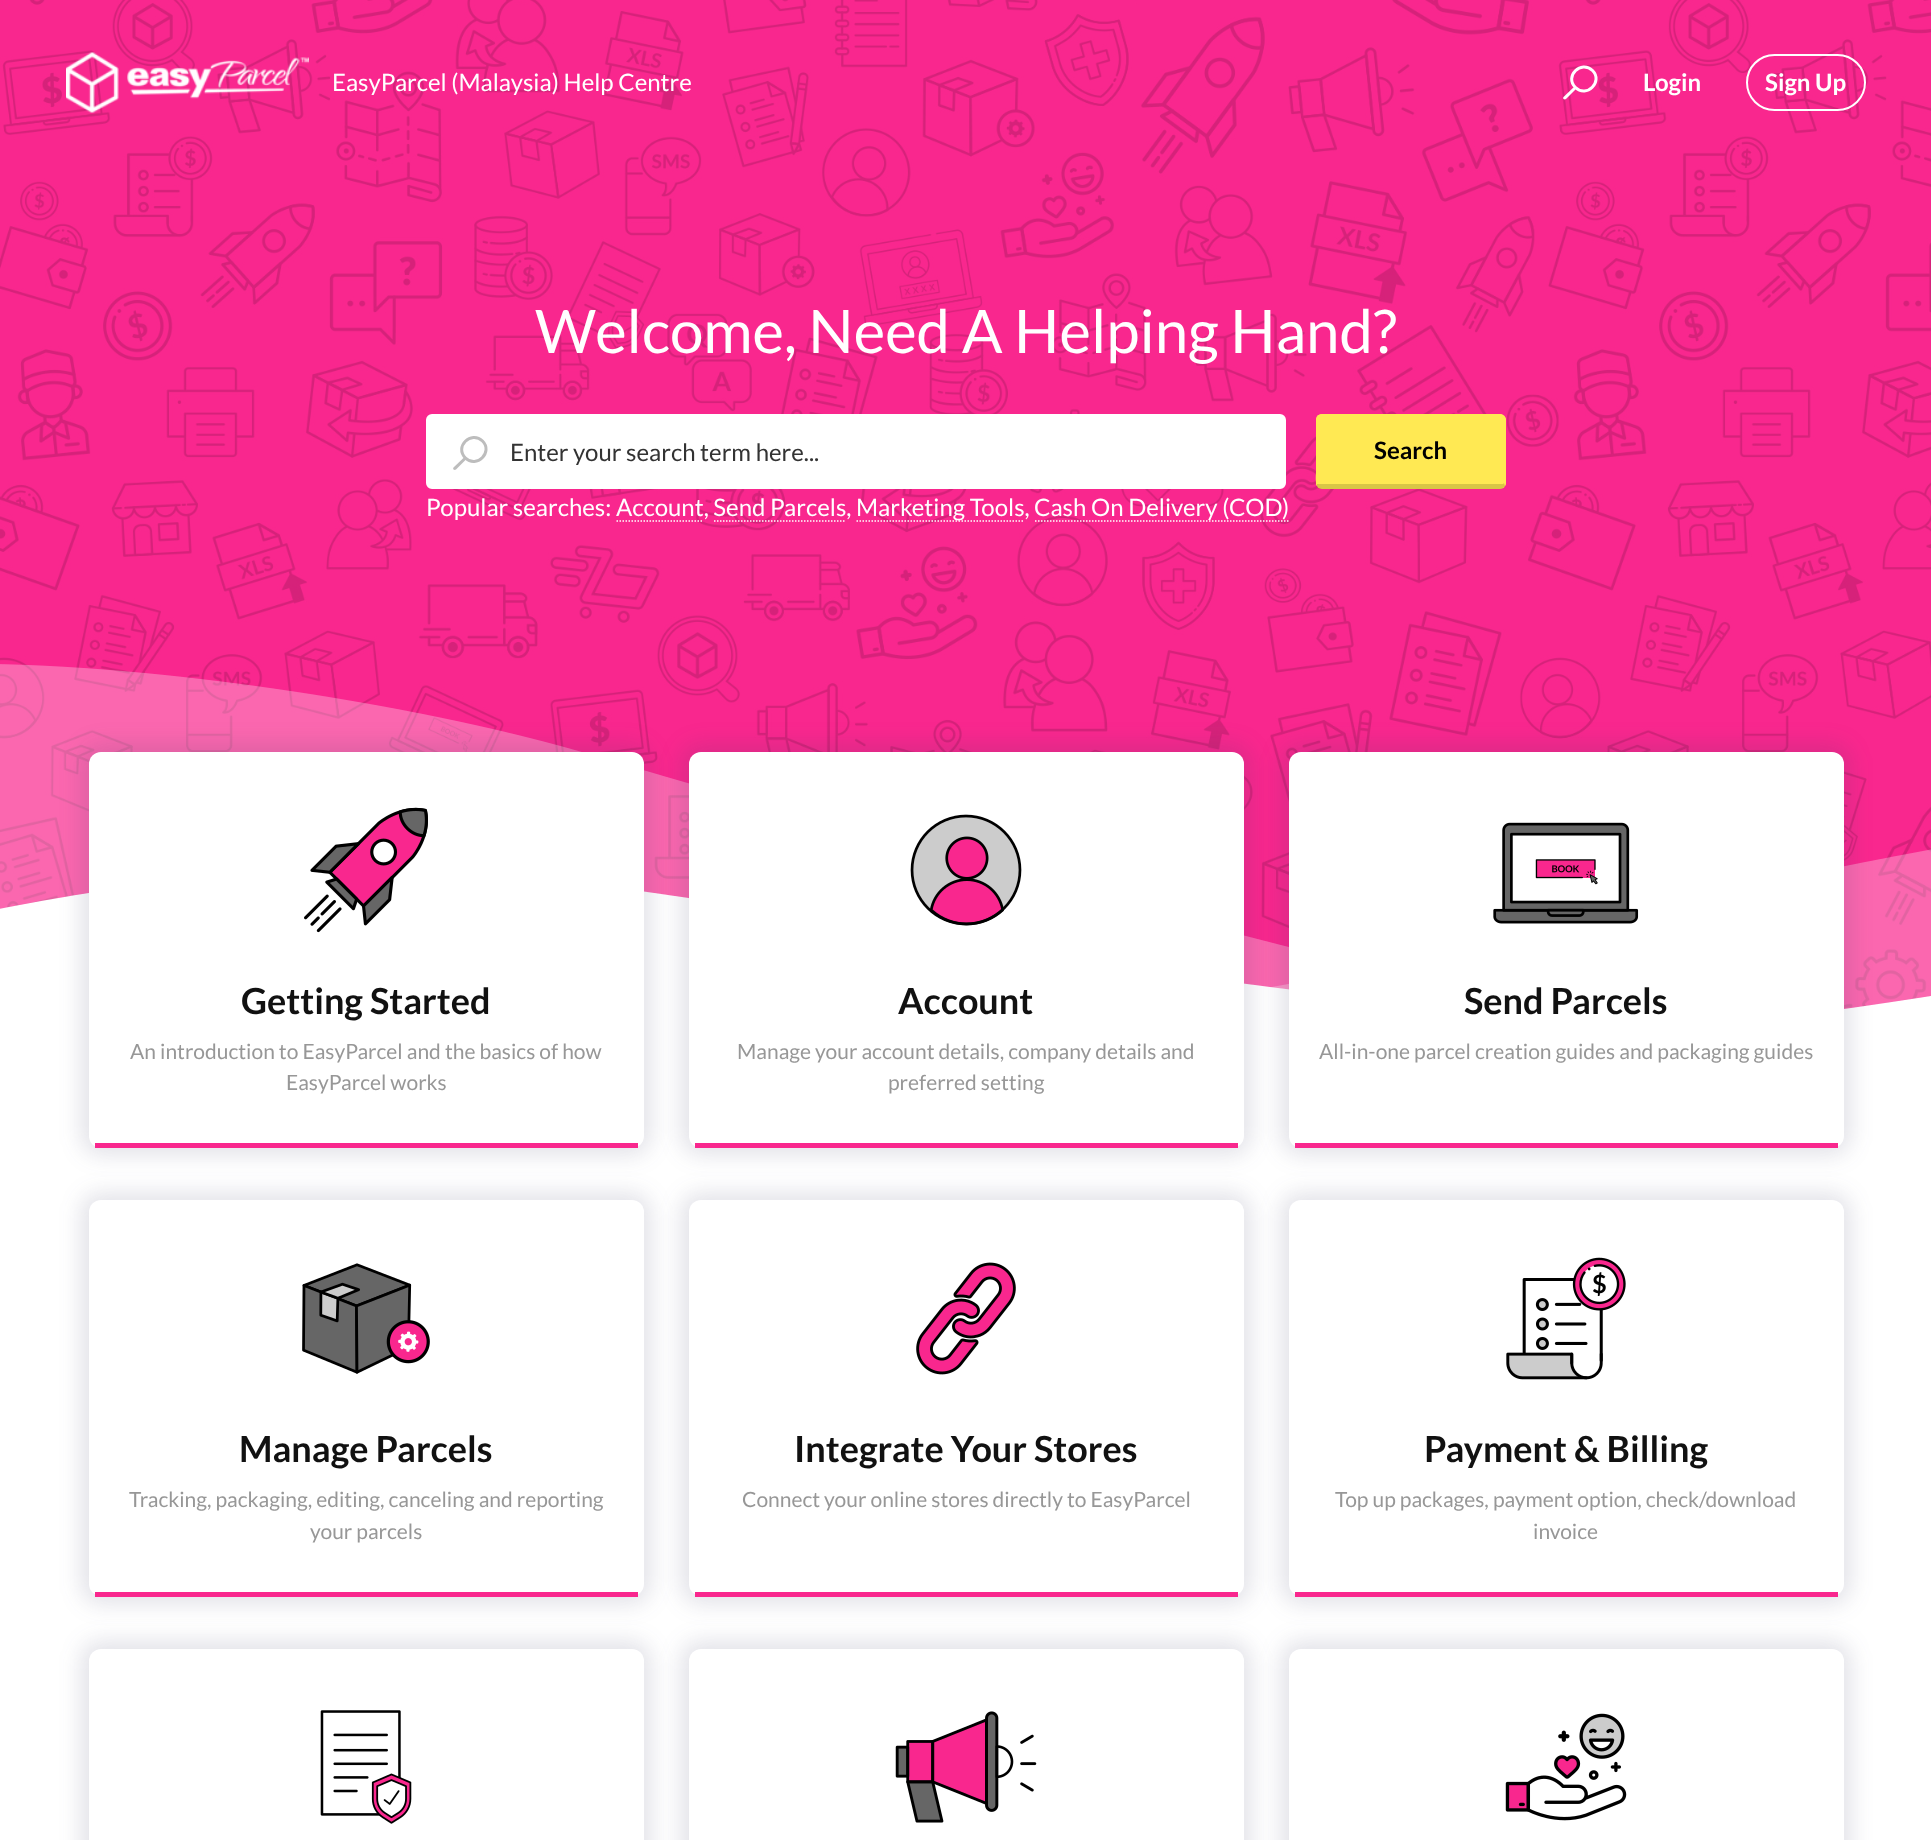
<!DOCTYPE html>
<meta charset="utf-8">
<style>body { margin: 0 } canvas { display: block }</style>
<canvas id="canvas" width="1931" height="1840"></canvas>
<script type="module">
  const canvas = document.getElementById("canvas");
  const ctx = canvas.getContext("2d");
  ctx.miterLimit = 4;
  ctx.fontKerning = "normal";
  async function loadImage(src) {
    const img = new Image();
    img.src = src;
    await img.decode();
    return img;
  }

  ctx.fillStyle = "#ffffff";
  ctx.fillRect(0, 0, 1931, 1840);
  ctx.drawImage(await loadImage("img1.png"), 0, 0, 1931, 1009);
  ctx.drawImage(await loadImage("img2.png"), 66, 52, 243, 61);
  ctx.font = "24px Lato";
  ctx.fillText("EasyParcel (Malaysia) Help Centre", 332, 91);
  ctx.beginPath();
  ctx.moveTo(1592.5, 70.5);
  ctx.bezierCurveTo(1603.5, 81.5, 1586.5, 98.5, 1575.5, 87.5);
  ctx.bezierCurveTo(1564, 76.5, 1581, 59.5, 1592.5, 70.5);
  ctx.closePath();
  ctx.strokeStyle = "#ffffff";
  ctx.lineWidth = 3;
  ctx.stroke();
  ctx.beginPath();
  ctx.moveTo(1574.5, 86.5);
  ctx.lineTo(1576.5, 88.5);
  ctx.lineTo(1566, 99);
  ctx.bezierCurveTo(1565, 99.5, 1564.5, 99.5, 1563.5, 99);
  ctx.bezierCurveTo(1563, 98.5, 1563, 97.5, 1563.5, 97);
  ctx.closePath();
  ctx.fill();
  ctx.font = "bold 24px Lato";
  ctx.fillText("Login", 1643, 91);
  ctx.beginPath();
  ctx.roundRect(1747, 55, 118, 55, 27.5);
  ctx.lineWidth = 2;
  ctx.stroke();
  ctx.fillText("Sign Up", 1765, 91);
  ctx.font = "60px Lato";
  ctx.fillText("Welcome, Need A Helping Hand?", 535, 353);
  ctx.beginPath();
  ctx.roundRect(427, 415, 858, 73, 5);
  ctx.fill();
  ctx.stroke();
  ctx.beginPath();
  ctx.moveTo(482.5, 441);
  ctx.bezierCurveTo(493.5, 452, 476.5, 469, 465.5, 458);
  ctx.bezierCurveTo(454, 447, 471, 430, 482.5, 441);
  ctx.closePath();
  ctx.strokeStyle = "#bdbdbd";
  ctx.lineWidth = 3;
  ctx.stroke();
  ctx.fillStyle = "#bdbdbd";
  ctx.beginPath();
  ctx.moveTo(464.5, 457);
  ctx.lineTo(466.5, 459);
  ctx.lineTo(456, 469.5);
  ctx.bezierCurveTo(455, 470, 454.5, 470, 453.5, 469.5);
  ctx.bezierCurveTo(453, 469, 453, 468, 453.5, 467.5);
  ctx.closePath();
  ctx.fill();
  ctx.font = "24px Lato";
  ctx.fillStyle = "#333333";
  ctx.fillText("Enter your search term here...", 510, 461);
  ctx.fillStyle = "#ffe953";
  ctx.beginPath();
  ctx.roundRect(1316, 414, 190, 75, 6);
  ctx.fill();
  ctx.beginPath();
  ctx.moveTo(1322, 414);
  ctx.bezierCurveTo(1320, 414, 1318, 415, 1317, 416);
  ctx.lineTo(1319, 417);
  ctx.bezierCurveTo(1319, 416, 1321, 416, 1322, 416);
  ctx.lineTo(1500, 416);
  ctx.bezierCurveTo(1501, 416, 1502, 416, 1503, 417);
  ctx.lineTo(1504, 416);
  ctx.bezierCurveTo(1503, 415, 1502, 414, 1500, 414);
  ctx.closePath();
  ctx.fill();
  ctx.beginPath();
  ctx.moveTo(1506, 483);
  ctx.lineTo(1506, 420);
  ctx.bezierCurveTo(1506, 418, 1505, 417, 1504, 416);
  ctx.lineTo(1503, 417);
  ctx.bezierCurveTo(1504, 418, 1504, 419, 1504, 420);
  ctx.lineTo(1504, 483);
  ctx.lineTo(1505, 486);
  ctx.closePath();
  ctx.fill();
  ctx.fillStyle = "rgba(0, 0, 0, 0.15)";
  ctx.beginPath();
  ctx.moveTo(1322, 489);
  ctx.lineTo(1500, 489);
  ctx.bezierCurveTo(1502, 489, 1504, 488, 1505, 486);
  ctx.lineTo(1504, 483);
  ctx.bezierCurveTo(1504, 484, 1502, 484, 1500, 484);
  ctx.lineTo(1322, 484);
  ctx.bezierCurveTo(1320, 484, 1318, 484, 1317, 484);
  ctx.lineTo(1317, 486);
  ctx.bezierCurveTo(1317, 488, 1319, 489, 1322, 489);
  ctx.closePath();
  ctx.fill();
  ctx.fillStyle = "#ffe953";
  ctx.beginPath();
  ctx.moveTo(1317, 416);
  ctx.lineTo(1316, 419);
  ctx.lineTo(1316, 472);
  ctx.bezierCurveTo(1316, 474, 1315, 482, 1317, 486);
  ctx.lineTo(1317, 484);
  ctx.lineTo(1317, 420);
  ctx.lineTo(1319, 417);
  ctx.closePath();
  ctx.fill();
  ctx.font = "bold 24px Lato";
  ctx.fillStyle = "#000000";
  ctx.fillText("Search", 1374, 459);
  ctx.font = "24px Lato";
  ctx.fillStyle = "#ffffff";
  ctx.fillText("Popular searches: Account, Send Parcels,", 426, 516);
  ctx.beginPath();
  ctx.moveTo(856.5, 521);
  ctx.lineTo(1024.5, 521);
  ctx.strokeStyle = "#ffffff";
  ctx.lineWidth = 1.5;
  ctx.setLineDash([1.5, 1.5]);
  ctx.stroke();
  ctx.fillText("Marketing Tools,", 856, 516);
  ctx.beginPath();
  ctx.moveTo(1035, 521);
  ctx.lineTo(1290, 521);
  ctx.stroke();
  ctx.fillText("Cash On Delivery (COD)", 1034, 516);
  ctx.beginPath();
  ctx.moveTo(616.5, 521);
  ctx.lineTo(703.5, 521);
  ctx.stroke();
  ctx.beginPath();
  ctx.moveTo(714, 521);
  ctx.lineTo(846, 521);
  ctx.stroke();
  ctx.drawImage(await loadImage("img3.png"), 0, 664, 1931, 376);
  ctx.fillStyle = "rgba(62, 60, 98, 0.15)";
  ctx.filter = "blur(11px)";
  ctx.beginPath();
  ctx.roundRect(81, 744, 570, 411, 20);
  ctx.fill();
  ctx.filter = "none";
  ctx.fillStyle = "#ffffff";
  ctx.beginPath();
  ctx.roundRect(89, 752, 555, 396, 12);
  ctx.fill();
  ctx.fillStyle = "#f9278e";
  ctx.fillRect(95, 1143, 543, 5);
  ctx.drawImage(await loadImage("img4.png"), 304, 807, 124, 126);
  ctx.font = "bold 36px Lato";
  ctx.fillStyle = "#111111";
  ctx.fillText("Getting Started", 241, 1014);
  ctx.font = "21px Lato";
  ctx.fillStyle = "#979797";
  ctx.fillText("An introduction to EasyParcel and the basics of how", 130, 1059);
  ctx.fillText("EasyParcel works", 286, 1090);
  ctx.fillStyle = "rgba(62, 60, 98, 0.15)";
  ctx.filter = "blur(11px)";
  ctx.beginPath();
  ctx.roundRect(681, 744, 570, 411, 20);
  ctx.fill();
  ctx.filter = "none";
  ctx.fillStyle = "#ffffff";
  ctx.beginPath();
  ctx.roundRect(689, 752, 555, 396, 12);
  ctx.fill();
  ctx.fillStyle = "#f9278e";
  ctx.fillRect(695, 1143, 543, 5);
  ctx.drawImage(await loadImage("img5.png"), 910, 814, 112, 112);
  ctx.font = "bold 36px Lato";
  ctx.fillStyle = "#111111";
  ctx.fillText("Account", 898, 1014);
  ctx.font = "21px Lato";
  ctx.fillStyle = "#979797";
  ctx.fillText("Manage your account details, company details and", 737, 1059);
  ctx.fillText("preferred setting", 888, 1090);
  ctx.fillStyle = "rgba(62, 60, 98, 0.15)";
  ctx.filter = "blur(11px)";
  ctx.beginPath();
  ctx.roundRect(1281, 744, 570, 411, 20);
  ctx.fill();
  ctx.filter = "none";
  ctx.fillStyle = "#ffffff";
  ctx.beginPath();
  ctx.roundRect(1289, 752, 555, 396, 12);
  ctx.fill();
  ctx.fillStyle = "#f9278e";
  ctx.fillRect(1295, 1143, 543, 5);
  ctx.drawImage(await loadImage("img6.png"), 1493, 822, 146, 102);
  ctx.font = "bold 36px Lato";
  ctx.fillStyle = "#111111";
  ctx.fillText("Send Parcels", 1464, 1014);
  ctx.font = "21px Lato";
  ctx.fillStyle = "#979797";
  ctx.fillText("All-in-one parcel creation guides and packaging guides", 1319, 1059);
  ctx.fillStyle = "rgba(62, 60, 98, 0.15)";
  ctx.filter = "blur(11px)";
  ctx.beginPath();
  ctx.roundRect(81, 1193, 570, 411, 20);
  ctx.fill();
  ctx.filter = "none";
  ctx.fillStyle = "#ffffff";
  ctx.beginPath();
  ctx.roundRect(89, 1200, 555, 396, 12);
  ctx.fill();
  ctx.fillStyle = "#f9278e";
  ctx.fillRect(95, 1592, 543, 5);
  ctx.drawImage(await loadImage("img7.png"), 302, 1263, 128, 111);
  ctx.font = "bold 36px Lato";
  ctx.fillStyle = "#111111";
  ctx.fillText("Manage Parcels", 239, 1462);
  ctx.font = "21px Lato";
  ctx.fillStyle = "#979797";
  ctx.fillText("Tracking, packaging, editing, canceling and reporting", 129, 1507);
  ctx.fillText("your parcels", 310, 1539);
  ctx.fillStyle = "rgba(62, 60, 98, 0.15)";
  ctx.filter = "blur(11px)";
  ctx.beginPath();
  ctx.roundRect(681, 1193, 570, 411, 20);
  ctx.fill();
  ctx.filter = "none";
  ctx.fillStyle = "#ffffff";
  ctx.beginPath();
  ctx.roundRect(689, 1200, 555, 396, 12);
  ctx.fill();
  ctx.fillStyle = "#f9278e";
  ctx.fillRect(695, 1592, 543, 5);
  ctx.drawImage(await loadImage("img8.png"), 916, 1262, 100, 113);
  ctx.font = "bold 36px Lato";
  ctx.fillStyle = "#111111";
  ctx.fillText("Integrate Your Stores", 794, 1462);
  ctx.font = "21px Lato";
  ctx.fillStyle = "#979797";
  ctx.fillText("Connect your online stores directly to EasyParcel", 742, 1507);
  ctx.fillStyle = "rgba(62, 60, 98, 0.15)";
  ctx.filter = "blur(11px)";
  ctx.beginPath();
  ctx.roundRect(1281, 1193, 570, 411, 20);
  ctx.fill();
  ctx.filter = "none";
  ctx.fillStyle = "#ffffff";
  ctx.beginPath();
  ctx.roundRect(1289, 1200, 555, 396, 12);
  ctx.fill();
  ctx.fillStyle = "#f9278e";
  ctx.fillRect(1295, 1592, 543, 5);
  ctx.drawImage(await loadImage("img9.png"), 1506, 1257, 120, 123);
  ctx.font = "bold 36px Lato";
  ctx.fillStyle = "#111111";
  ctx.fillText("Payment & Billing", 1424, 1462);
  ctx.font = "21px Lato";
  ctx.fillStyle = "#979797";
  ctx.fillText("Top up packages, payment option, check/download", 1335, 1507);
  ctx.fillText("invoice", 1533, 1539);
  ctx.fillStyle = "rgba(62, 60, 98, 0.15)";
  ctx.filter = "blur(11px)";
  ctx.beginPath();
  ctx.roundRect(81, 1641, 570, 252, 20);
  ctx.fill();
  ctx.filter = "none";
  ctx.fillStyle = "#ffffff";
  ctx.beginPath();
  ctx.roundRect(89, 1649, 555, 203, 12);
  ctx.fill();
  ctx.drawImage(await loadImage("img10.png"), 320, 1710, 92, 114);
  ctx.fillStyle = "rgba(62, 60, 98, 0.15)";
  ctx.filter = "blur(11px)";
  ctx.beginPath();
  ctx.roundRect(681, 1641, 570, 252, 20);
  ctx.fill();
  ctx.filter = "none";
  ctx.fillStyle = "#ffffff";
  ctx.beginPath();
  ctx.roundRect(689, 1649, 555, 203, 12);
  ctx.fill();
  ctx.drawImage(await loadImage("img11.png"), 895, 1711, 142, 112);
  ctx.fillStyle = "rgba(62, 60, 98, 0.15)";
  ctx.filter = "blur(11px)";
  ctx.beginPath();
  ctx.roundRect(1281, 1641, 570, 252, 20);
  ctx.fill();
  ctx.filter = "none";
  ctx.fillStyle = "#ffffff";
  ctx.beginPath();
  ctx.roundRect(1289, 1649, 555, 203, 12);
  ctx.fill();
  ctx.drawImage(await loadImage("img12.png"), 1505, 1713, 122, 108);
</script>
